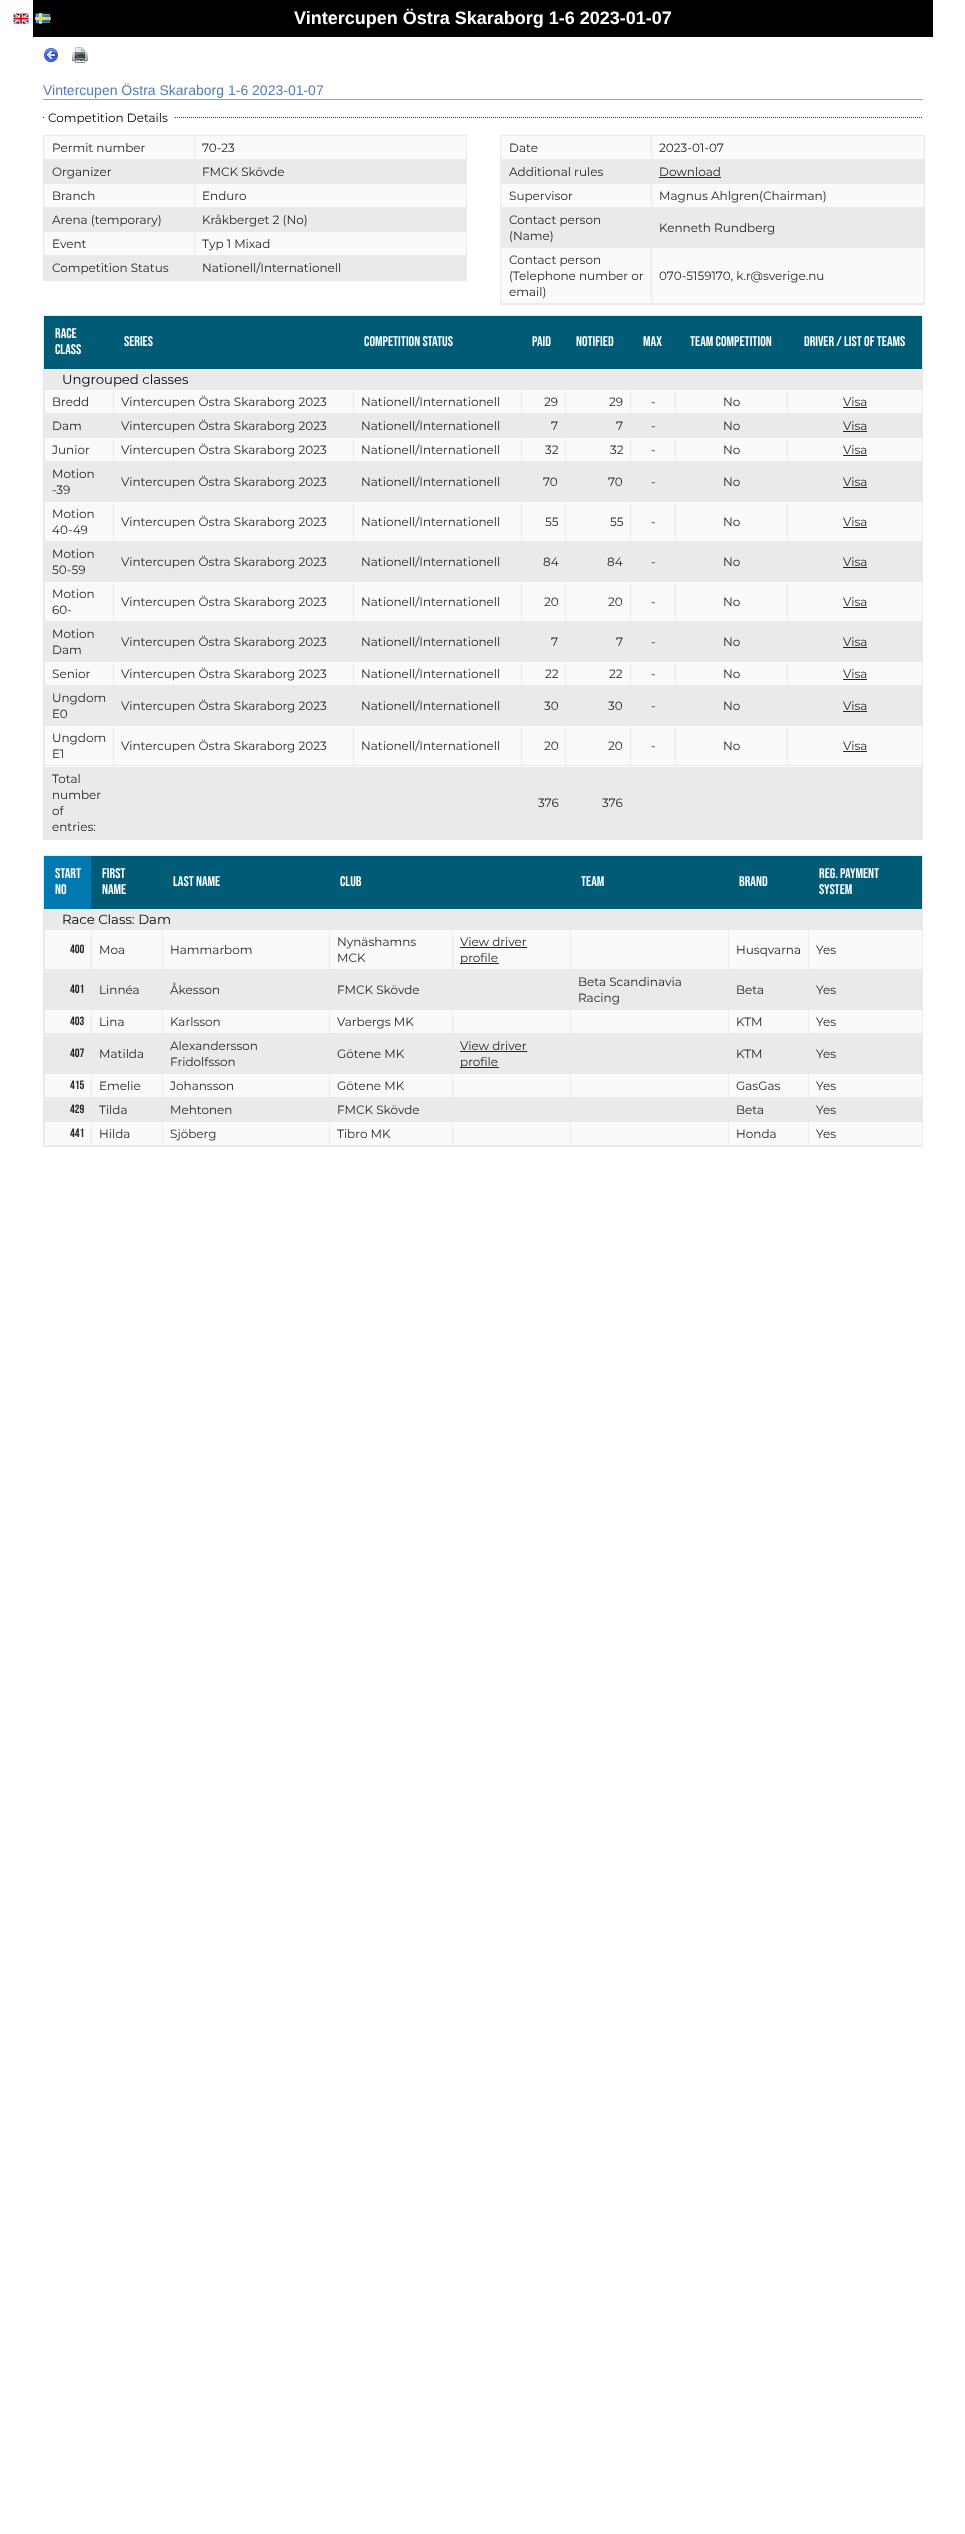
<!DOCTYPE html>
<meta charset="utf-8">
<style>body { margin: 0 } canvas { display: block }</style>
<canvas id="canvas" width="965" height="2534"></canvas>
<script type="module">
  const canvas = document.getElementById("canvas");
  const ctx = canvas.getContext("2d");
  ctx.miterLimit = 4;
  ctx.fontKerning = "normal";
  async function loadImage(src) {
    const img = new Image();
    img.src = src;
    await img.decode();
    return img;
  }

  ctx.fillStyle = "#ffffff";
  ctx.fillRect(0, 0, 965, 2534);
  ctx.drawImage(await loadImage("img1.png"), 13, 13, 16, 11);
  ctx.fillStyle = "#000000";
  ctx.fillRect(33, 0, 900, 37);
  ctx.drawImage(await loadImage("img2.png"), 35, 13, 16, 11);
  ctx.font = "bold 18px Liberation Sans";
  ctx.fillStyle = "#ffffff";
  ctx.fillText("Vintercupen Östra Skaraborg 1-6 2023-01-07", 294, 24);
  ctx.drawImage(await loadImage("img3.png"), 44, 48, 14, 14);
  ctx.drawImage(await loadImage("img4.png"), 72, 47, 16, 16);
  ctx.fillStyle = "#a0a0a0";
  ctx.fillRect(43, 99, 880, 1);
  ctx.font = "14px Liberation Sans";
  ctx.fillStyle = "#567db0";
  ctx.fillText("Vintercupen Östra Skaraborg 1-6 2023-01-07", 43, 95);
  ctx.drawImage(await loadImage("img5.png"), 43, 117, 879, 1);
  ctx.fillStyle = "#ffffff";
  ctx.beginPath();
  ctx.roundRect(45, 108, 130, 19, 4);
  ctx.fill();
  ctx.font = "100 12px Montserrat";
  ctx.fillStyle = "#000000";
  ctx.fillText("Competition Details", 48, 122);
  ctx.strokeStyle = "#eaeaea";
  ctx.strokeRect(43.5, 135.5, 423, 145);
  ctx.fillStyle = "#fafafa";
  ctx.fillRect(44, 136, 422, 23);
  ctx.fillStyle = "#eaeaea";
  ctx.fillRect(44, 159, 422, 25);
  ctx.fillStyle = "#272722";
  ctx.fillText("Permit number", 52, 152);
  ctx.fillStyle = "#eaeaea";
  ctx.fillRect(194, 136, 1, 24);
  ctx.fillStyle = "#272722";
  ctx.fillText("70-23", 202, 152);
  ctx.fillText("Organizer", 52, 176);
  ctx.fillText("FMCK Skövde", 202, 176);
  ctx.fillStyle = "#fafafa";
  ctx.fillRect(44, 184, 422, 23);
  ctx.fillStyle = "#eaeaea";
  ctx.fillRect(44, 207, 422, 25);
  ctx.fillStyle = "#272722";
  ctx.fillText("Branch", 52, 200);
  ctx.fillStyle = "#eaeaea";
  ctx.fillRect(194, 184, 1, 24);
  ctx.fillStyle = "#272722";
  ctx.fillText("Enduro", 202, 200);
  ctx.fillText("Arena (temporary)", 52, 224);
  ctx.fillText("Kråkberget 2 (No)", 202, 224);
  ctx.fillStyle = "#fafafa";
  ctx.fillRect(44, 232, 422, 23);
  ctx.fillStyle = "#eaeaea";
  ctx.fillRect(44, 255, 422, 25);
  ctx.fillStyle = "#272722";
  ctx.fillText("Event", 52, 248);
  ctx.fillStyle = "#eaeaea";
  ctx.fillRect(194, 232, 1, 24);
  ctx.fillStyle = "#272722";
  ctx.fillText("Typ 1 Mixad", 202, 248);
  ctx.fillText("Competition Status", 52, 272);
  ctx.fillText("Nationell/Internationell", 202, 272);
  ctx.strokeRect(500.5, 135.5, 424, 169);
  ctx.fillStyle = "#fafafa";
  ctx.fillRect(501, 136, 423, 23);
  ctx.fillStyle = "#eaeaea";
  ctx.fillRect(501, 159, 423, 25);
  ctx.fillStyle = "#272722";
  ctx.fillText("Date", 509, 152);
  ctx.fillStyle = "#eaeaea";
  ctx.fillRect(651, 136, 1, 24);
  ctx.fillStyle = "#272722";
  ctx.fillText("2023-01-07", 659, 152);
  ctx.fillText("Additional rules", 509, 176);
  ctx.fillText("Download", 659, 176);
  ctx.fillRect(659, 177, 62, 1);
  ctx.fillStyle = "#fafafa";
  ctx.fillRect(501, 184, 423, 23);
  ctx.fillStyle = "#eaeaea";
  ctx.fillRect(501, 207, 423, 41);
  ctx.fillStyle = "#272722";
  ctx.fillText("Supervisor", 509, 200);
  ctx.fillStyle = "#eaeaea";
  ctx.fillRect(651, 184, 1, 24);
  ctx.fillStyle = "#272722";
  ctx.fillText("Magnus Ahlgren(Chairman)", 659, 200);
  ctx.fillText("Contact person", 509, 224);
  ctx.fillText("(Name)", 509, 240);
  ctx.fillText("Kenneth Rundberg", 659, 232);
  ctx.fillStyle = "#fafafa";
  ctx.fillRect(501, 248, 423, 55);
  ctx.fillStyle = "#eaeaea";
  ctx.fillRect(501, 303, 423, 1);
  ctx.fillStyle = "#272722";
  ctx.fillText("Contact person", 509, 264);
  ctx.fillText("(Telephone number or", 509, 280);
  ctx.fillText("email)", 509, 296);
  ctx.fillStyle = "#eaeaea";
  ctx.fillRect(651, 248, 1, 56);
  ctx.fillStyle = "#272722";
  ctx.fillText("070-5159170, k.r@sverige.nu", 659, 280);
  ctx.strokeRect(43.5, 315.5, 879, 524);
  ctx.fillStyle = "#005b77";
  ctx.fillRect(45, 316, 67, 52);
  ctx.fillRect(112, 316, 1, 53);
  ctx.fillRect(44, 368, 69, 1);
  ctx.fillRect(44, 316, 1, 53);
  ctx.font = "14px Bebas Neue";
  ctx.fillStyle = "#ffffff";
  ctx.fillText("Race", 55, 338);
  ctx.fillText("Class", 55, 354);
  ctx.fillStyle = "#005b77";
  ctx.fillRect(114, 316, 238, 52);
  ctx.fillRect(352, 316, 1, 53);
  ctx.fillRect(113, 368, 240, 1);
  ctx.fillRect(113, 316, 1, 53);
  ctx.fillStyle = "#ffffff";
  ctx.fillText("Series", 124, 346);
  ctx.fillStyle = "#005b77";
  ctx.fillRect(354, 316, 166, 52);
  ctx.fillRect(520, 316, 1, 53);
  ctx.fillRect(353, 368, 168, 1);
  ctx.fillRect(353, 316, 1, 53);
  ctx.fillStyle = "#ffffff";
  ctx.fillText("Competition Status", 364, 346);
  ctx.fillStyle = "#005b77";
  ctx.fillRect(522, 316, 42, 52);
  ctx.fillRect(564, 316, 1, 53);
  ctx.fillRect(521, 368, 44, 1);
  ctx.fillRect(521, 316, 1, 53);
  ctx.fillStyle = "#ffffff";
  ctx.fillText("Paid", 532, 346);
  ctx.fillStyle = "#005b77";
  ctx.fillRect(566, 316, 63, 52);
  ctx.fillRect(629, 316, 1, 53);
  ctx.fillRect(565, 368, 65, 1);
  ctx.fillRect(565, 316, 1, 53);
  ctx.fillStyle = "#ffffff";
  ctx.fillText("Notified", 576, 346);
  ctx.fillStyle = "#005b77";
  ctx.fillRect(631, 316, 43, 52);
  ctx.fillRect(674, 316, 1, 53);
  ctx.fillRect(630, 368, 45, 1);
  ctx.fillRect(630, 316, 1, 53);
  ctx.fillStyle = "#ffffff";
  ctx.fillText("Max", 643, 346);
  ctx.fillStyle = "#005b77";
  ctx.fillRect(676, 316, 110, 52);
  ctx.fillRect(786, 316, 1, 53);
  ctx.fillRect(675, 368, 112, 1);
  ctx.fillRect(675, 316, 1, 53);
  ctx.fillStyle = "#ffffff";
  ctx.fillText("Team competition", 690, 346);
  ctx.fillStyle = "#005b77";
  ctx.fillRect(788, 316, 133, 52);
  ctx.fillRect(921, 316, 1, 53);
  ctx.fillRect(787, 368, 135, 1);
  ctx.fillRect(787, 316, 1, 53);
  ctx.fillStyle = "#ffffff";
  ctx.fillText("Driver / List of teams", 804, 346);
  ctx.fillStyle = "#eaeaea";
  ctx.fillRect(44, 369, 878, 21);
  ctx.font = "100 13.25px Montserrat";
  ctx.fillStyle = "#000000";
  ctx.fillText("Ungrouped classes", 62, 384);
  ctx.fillStyle = "#fafafa";
  ctx.fillRect(45, 390, 877, 23);
  ctx.fillStyle = "#eaeaea";
  ctx.fillRect(44, 413, 878, 25);
  ctx.fillRect(44, 390, 1, 24);
  ctx.font = "100 12px Montserrat";
  ctx.fillStyle = "#272722";
  ctx.fillText("Bredd", 52, 406);
  ctx.fillStyle = "#eaeaea";
  ctx.fillRect(113, 390, 1, 24);
  ctx.fillStyle = "#272722";
  ctx.fillText("Vintercupen Östra Skaraborg 2023", 121, 406);
  ctx.fillStyle = "#eaeaea";
  ctx.fillRect(353, 390, 1, 24);
  ctx.fillStyle = "#272722";
  ctx.fillText("Nationell/Internationell", 361, 406);
  ctx.fillStyle = "#eaeaea";
  ctx.fillRect(521, 390, 1, 24);
  ctx.fillStyle = "#272722";
  ctx.fillText("29", 544, 406);
  ctx.fillStyle = "#eaeaea";
  ctx.fillRect(565, 390, 1, 24);
  ctx.fillStyle = "#272722";
  ctx.fillText("29", 609, 406);
  ctx.fillStyle = "#eaeaea";
  ctx.fillRect(630, 390, 1, 24);
  ctx.fillStyle = "#272722";
  ctx.fillText("-", 651, 406);
  ctx.fillStyle = "#eaeaea";
  ctx.fillRect(675, 390, 1, 24);
  ctx.fillStyle = "#272722";
  ctx.fillText("No", 723, 406);
  ctx.fillStyle = "#eaeaea";
  ctx.fillRect(787, 390, 1, 24);
  ctx.fillStyle = "#272722";
  ctx.fillText("Visa", 843, 406);
  ctx.fillRect(843, 407, 24, 1);
  ctx.fillText("Dam", 52, 430);
  ctx.fillText("Vintercupen Östra Skaraborg 2023", 121, 430);
  ctx.fillText("Nationell/Internationell", 361, 430);
  ctx.fillText("7", 551, 430);
  ctx.fillText("7", 616, 430);
  ctx.fillText("-", 651, 430);
  ctx.fillText("No", 723, 430);
  ctx.fillText("Visa", 843, 430);
  ctx.fillRect(843, 431, 24, 1);
  ctx.fillStyle = "#fafafa";
  ctx.fillRect(45, 438, 877, 23);
  ctx.fillStyle = "#eaeaea";
  ctx.fillRect(44, 461, 878, 41);
  ctx.fillRect(44, 438, 1, 24);
  ctx.fillStyle = "#272722";
  ctx.fillText("Junior", 52, 454);
  ctx.fillStyle = "#eaeaea";
  ctx.fillRect(113, 438, 1, 24);
  ctx.fillStyle = "#272722";
  ctx.fillText("Vintercupen Östra Skaraborg 2023", 121, 454);
  ctx.fillStyle = "#eaeaea";
  ctx.fillRect(353, 438, 1, 24);
  ctx.fillStyle = "#272722";
  ctx.fillText("Nationell/Internationell", 361, 454);
  ctx.fillStyle = "#eaeaea";
  ctx.fillRect(521, 438, 1, 24);
  ctx.fillStyle = "#272722";
  ctx.fillText("32", 545, 454);
  ctx.fillStyle = "#eaeaea";
  ctx.fillRect(565, 438, 1, 24);
  ctx.fillStyle = "#272722";
  ctx.fillText("32", 610, 454);
  ctx.fillStyle = "#eaeaea";
  ctx.fillRect(630, 438, 1, 24);
  ctx.fillStyle = "#272722";
  ctx.fillText("-", 651, 454);
  ctx.fillStyle = "#eaeaea";
  ctx.fillRect(675, 438, 1, 24);
  ctx.fillStyle = "#272722";
  ctx.fillText("No", 723, 454);
  ctx.fillStyle = "#eaeaea";
  ctx.fillRect(787, 438, 1, 24);
  ctx.fillStyle = "#272722";
  ctx.fillText("Visa", 843, 454);
  ctx.fillRect(843, 455, 24, 1);
  ctx.fillText("Motion", 52, 478);
  ctx.fillText("-39", 52, 494);
  ctx.fillText("Vintercupen Östra Skaraborg 2023", 121, 486);
  ctx.fillText("Nationell/Internationell", 361, 486);
  ctx.fillText("70", 543, 486);
  ctx.fillText("70", 608, 486);
  ctx.fillText("-", 651, 486);
  ctx.fillText("No", 723, 486);
  ctx.fillText("Visa", 843, 486);
  ctx.fillRect(843, 487, 24, 1);
  ctx.fillStyle = "#fafafa";
  ctx.fillRect(45, 502, 877, 39);
  ctx.fillStyle = "#eaeaea";
  ctx.fillRect(44, 541, 878, 41);
  ctx.fillRect(44, 502, 1, 40);
  ctx.fillStyle = "#272722";
  ctx.fillText("Motion", 52, 518);
  ctx.fillText("40-49", 52, 534);
  ctx.fillStyle = "#eaeaea";
  ctx.fillRect(113, 502, 1, 40);
  ctx.fillStyle = "#272722";
  ctx.fillText("Vintercupen Östra Skaraborg 2023", 121, 526);
  ctx.fillStyle = "#eaeaea";
  ctx.fillRect(353, 502, 1, 40);
  ctx.fillStyle = "#272722";
  ctx.fillText("Nationell/Internationell", 361, 526);
  ctx.fillStyle = "#eaeaea";
  ctx.fillRect(521, 502, 1, 40);
  ctx.fillStyle = "#272722";
  ctx.fillText("55", 545, 526);
  ctx.fillStyle = "#eaeaea";
  ctx.fillRect(565, 502, 1, 40);
  ctx.fillStyle = "#272722";
  ctx.fillText("55", 610, 526);
  ctx.fillStyle = "#eaeaea";
  ctx.fillRect(630, 502, 1, 40);
  ctx.fillStyle = "#272722";
  ctx.fillText("-", 651, 526);
  ctx.fillStyle = "#eaeaea";
  ctx.fillRect(675, 502, 1, 40);
  ctx.fillStyle = "#272722";
  ctx.fillText("No", 723, 526);
  ctx.fillStyle = "#eaeaea";
  ctx.fillRect(787, 502, 1, 40);
  ctx.fillStyle = "#272722";
  ctx.fillText("Visa", 843, 526);
  ctx.fillRect(843, 527, 24, 1);
  ctx.fillText("Motion", 52, 558);
  ctx.fillText("50-59", 52, 574);
  ctx.fillText("Vintercupen Östra Skaraborg 2023", 121, 566);
  ctx.fillText("Nationell/Internationell", 361, 566);
  ctx.fillText("84", 543, 566);
  ctx.fillText("84", 607, 566);
  ctx.fillText("-", 651, 566);
  ctx.fillText("No", 723, 566);
  ctx.fillText("Visa", 843, 566);
  ctx.fillRect(843, 567, 24, 1);
  ctx.fillStyle = "#fafafa";
  ctx.fillRect(45, 582, 877, 39);
  ctx.fillStyle = "#eaeaea";
  ctx.fillRect(44, 621, 878, 41);
  ctx.fillRect(44, 582, 1, 40);
  ctx.fillStyle = "#272722";
  ctx.fillText("Motion", 52, 598);
  ctx.fillText("60-", 52, 614);
  ctx.fillStyle = "#eaeaea";
  ctx.fillRect(113, 582, 1, 40);
  ctx.fillStyle = "#272722";
  ctx.fillText("Vintercupen Östra Skaraborg 2023", 121, 606);
  ctx.fillStyle = "#eaeaea";
  ctx.fillRect(353, 582, 1, 40);
  ctx.fillStyle = "#272722";
  ctx.fillText("Nationell/Internationell", 361, 606);
  ctx.fillStyle = "#eaeaea";
  ctx.fillRect(521, 582, 1, 40);
  ctx.fillStyle = "#272722";
  ctx.fillText("20", 544, 606);
  ctx.fillStyle = "#eaeaea";
  ctx.fillRect(565, 582, 1, 40);
  ctx.fillStyle = "#272722";
  ctx.fillText("20", 608, 606);
  ctx.fillStyle = "#eaeaea";
  ctx.fillRect(630, 582, 1, 40);
  ctx.fillStyle = "#272722";
  ctx.fillText("-", 651, 606);
  ctx.fillStyle = "#eaeaea";
  ctx.fillRect(675, 582, 1, 40);
  ctx.fillStyle = "#272722";
  ctx.fillText("No", 723, 606);
  ctx.fillStyle = "#eaeaea";
  ctx.fillRect(787, 582, 1, 40);
  ctx.fillStyle = "#272722";
  ctx.fillText("Visa", 843, 606);
  ctx.fillRect(843, 607, 24, 1);
  ctx.fillText("Motion", 52, 638);
  ctx.fillText("Dam", 52, 654);
  ctx.fillText("Vintercupen Östra Skaraborg 2023", 121, 646);
  ctx.fillText("Nationell/Internationell", 361, 646);
  ctx.fillText("7", 551, 646);
  ctx.fillText("7", 616, 646);
  ctx.fillText("-", 651, 646);
  ctx.fillText("No", 723, 646);
  ctx.fillText("Visa", 843, 646);
  ctx.fillRect(843, 647, 24, 1);
  ctx.fillStyle = "#fafafa";
  ctx.fillRect(45, 662, 877, 23);
  ctx.fillStyle = "#eaeaea";
  ctx.fillRect(44, 685, 878, 41);
  ctx.fillRect(44, 662, 1, 24);
  ctx.fillStyle = "#272722";
  ctx.fillText("Senior", 52, 678);
  ctx.fillStyle = "#eaeaea";
  ctx.fillRect(113, 662, 1, 24);
  ctx.fillStyle = "#272722";
  ctx.fillText("Vintercupen Östra Skaraborg 2023", 121, 678);
  ctx.fillStyle = "#eaeaea";
  ctx.fillRect(353, 662, 1, 24);
  ctx.fillStyle = "#272722";
  ctx.fillText("Nationell/Internationell", 361, 678);
  ctx.fillStyle = "#eaeaea";
  ctx.fillRect(521, 662, 1, 24);
  ctx.fillStyle = "#272722";
  ctx.fillText("22", 545, 678);
  ctx.fillStyle = "#eaeaea";
  ctx.fillRect(565, 662, 1, 24);
  ctx.fillStyle = "#272722";
  ctx.fillText("22", 609, 678);
  ctx.fillStyle = "#eaeaea";
  ctx.fillRect(630, 662, 1, 24);
  ctx.fillStyle = "#272722";
  ctx.fillText("-", 651, 678);
  ctx.fillStyle = "#eaeaea";
  ctx.fillRect(675, 662, 1, 24);
  ctx.fillStyle = "#272722";
  ctx.fillText("No", 723, 678);
  ctx.fillStyle = "#eaeaea";
  ctx.fillRect(787, 662, 1, 24);
  ctx.fillStyle = "#272722";
  ctx.fillText("Visa", 843, 678);
  ctx.fillRect(843, 679, 24, 1);
  ctx.fillText("Ungdom", 52, 702);
  ctx.fillText("E0", 52, 718);
  ctx.fillText("Vintercupen Östra Skaraborg 2023", 121, 710);
  ctx.fillText("Nationell/Internationell", 361, 710);
  ctx.fillText("30", 544, 710);
  ctx.fillText("30", 608, 710);
  ctx.fillText("-", 651, 710);
  ctx.fillText("No", 723, 710);
  ctx.fillText("Visa", 843, 710);
  ctx.fillRect(843, 711, 24, 1);
  ctx.fillStyle = "#fafafa";
  ctx.fillRect(45, 726, 877, 39);
  ctx.fillStyle = "#eaeaea";
  ctx.fillRect(44, 765, 878, 1);
  ctx.fillRect(44, 726, 1, 40);
  ctx.fillStyle = "#272722";
  ctx.fillText("Ungdom", 52, 742);
  ctx.fillText("E1", 52, 758);
  ctx.fillStyle = "#eaeaea";
  ctx.fillRect(113, 726, 1, 40);
  ctx.fillStyle = "#272722";
  ctx.fillText("Vintercupen Östra Skaraborg 2023", 121, 750);
  ctx.fillStyle = "#eaeaea";
  ctx.fillRect(353, 726, 1, 40);
  ctx.fillStyle = "#272722";
  ctx.fillText("Nationell/Internationell", 361, 750);
  ctx.fillStyle = "#eaeaea";
  ctx.fillRect(521, 726, 1, 40);
  ctx.fillStyle = "#272722";
  ctx.fillText("20", 544, 750);
  ctx.fillStyle = "#eaeaea";
  ctx.fillRect(565, 726, 1, 40);
  ctx.fillStyle = "#272722";
  ctx.fillText("20", 608, 750);
  ctx.fillStyle = "#eaeaea";
  ctx.fillRect(630, 726, 1, 40);
  ctx.fillStyle = "#272722";
  ctx.fillText("-", 651, 750);
  ctx.fillStyle = "#eaeaea";
  ctx.fillRect(675, 726, 1, 40);
  ctx.fillStyle = "#272722";
  ctx.fillText("No", 723, 750);
  ctx.fillStyle = "#eaeaea";
  ctx.fillRect(787, 726, 1, 40);
  ctx.fillStyle = "#272722";
  ctx.fillText("Visa", 843, 750);
  ctx.fillRect(843, 751, 24, 1);
  ctx.fillStyle = "#eaeaea";
  ctx.fillRect(45, 767, 877, 72);
  ctx.fillRect(113, 766, 1, 1);
  ctx.fillRect(353, 766, 1, 1);
  ctx.fillRect(630, 766, 1, 1);
  ctx.fillRect(675, 766, 1, 1);
  ctx.fillRect(787, 766, 1, 1);
  ctx.fillRect(44, 766, 1, 73);
  ctx.fillStyle = "#272722";
  ctx.fillText("Total", 52, 783);
  ctx.fillText("number", 52, 799);
  ctx.fillText("of", 52, 815);
  ctx.fillText("entries:", 52, 831);
  ctx.fillStyle = "#eaeaea";
  ctx.fillRect(521, 766, 1, 1);
  ctx.fillStyle = "#272722";
  ctx.fillText("376", 538, 807);
  ctx.fillStyle = "#eaeaea";
  ctx.fillRect(565, 766, 1, 1);
  ctx.fillStyle = "#272722";
  ctx.fillText("376", 602, 807);
  ctx.strokeRect(43.5, 855.5, 879, 291);
  ctx.fillStyle = "#0079b1";
  ctx.fillRect(45, 856, 45, 52);
  ctx.fillRect(90, 856, 1, 53);
  ctx.fillRect(44, 908, 47, 1);
  ctx.fillRect(44, 856, 1, 53);
  ctx.font = "14px Bebas Neue";
  ctx.fillStyle = "#ffffff";
  ctx.fillText("Start", 55, 878);
  ctx.fillText("no", 55, 894);
  ctx.fillStyle = "#005b77";
  ctx.fillRect(92, 856, 69, 52);
  ctx.fillRect(161, 856, 1, 53);
  ctx.fillRect(91, 908, 71, 1);
  ctx.fillRect(91, 856, 1, 53);
  ctx.fillStyle = "#ffffff";
  ctx.fillText("First", 102, 878);
  ctx.fillText("name", 102, 894);
  ctx.fillStyle = "#005b77";
  ctx.fillRect(163, 856, 165, 52);
  ctx.fillRect(328, 856, 1, 53);
  ctx.fillRect(162, 908, 167, 1);
  ctx.fillRect(162, 856, 1, 53);
  ctx.fillStyle = "#ffffff";
  ctx.fillText("Last name", 173, 886);
  ctx.fillStyle = "#005b77";
  ctx.fillRect(330, 856, 121, 52);
  ctx.fillRect(451, 856, 1, 53);
  ctx.fillRect(329, 908, 123, 1);
  ctx.fillRect(329, 856, 1, 53);
  ctx.fillStyle = "#ffffff";
  ctx.fillText("Club", 340, 886);
  ctx.fillStyle = "#005b77";
  ctx.fillRect(453, 856, 116, 52);
  ctx.fillRect(569, 856, 1, 53);
  ctx.fillRect(452, 908, 118, 1);
  ctx.fillRect(452, 856, 1, 53);
  ctx.fillRect(571, 856, 156, 52);
  ctx.fillRect(727, 856, 1, 53);
  ctx.fillRect(570, 908, 158, 1);
  ctx.fillRect(570, 856, 1, 53);
  ctx.fillStyle = "#ffffff";
  ctx.fillText("Team", 581, 886);
  ctx.fillStyle = "#005b77";
  ctx.fillRect(729, 856, 78, 52);
  ctx.fillRect(807, 856, 1, 53);
  ctx.fillRect(728, 908, 80, 1);
  ctx.fillRect(728, 856, 1, 53);
  ctx.fillStyle = "#ffffff";
  ctx.fillText("Brand", 739, 886);
  ctx.fillStyle = "#005b77";
  ctx.fillRect(809, 856, 112, 52);
  ctx.fillRect(921, 856, 1, 53);
  ctx.fillRect(808, 908, 114, 1);
  ctx.fillRect(808, 856, 1, 53);
  ctx.fillStyle = "#ffffff";
  ctx.fillText("Reg. Payment", 819, 878);
  ctx.fillText("system", 819, 894);
  ctx.fillStyle = "#eaeaea";
  ctx.fillRect(44, 909, 878, 21);
  ctx.font = "100 13.25px Montserrat";
  ctx.fillStyle = "#000000";
  ctx.fillText("Race Class: Dam", 62, 924);
  ctx.fillStyle = "#fafafa";
  ctx.fillRect(45, 930, 877, 39);
  ctx.fillStyle = "#eaeaea";
  ctx.fillRect(44, 969, 878, 41);
  ctx.fillRect(44, 930, 1, 40);
  ctx.font = "12px Bebas Neue";
  ctx.fillStyle = "#272722";
  ctx.fillText("400", 70, 953);
  ctx.fillStyle = "#eaeaea";
  ctx.fillRect(91, 930, 1, 40);
  ctx.font = "100 12px Montserrat";
  ctx.fillStyle = "#272722";
  ctx.fillText("Moa", 99, 954);
  ctx.fillStyle = "#eaeaea";
  ctx.fillRect(162, 930, 1, 40);
  ctx.fillStyle = "#272722";
  ctx.fillText("Hammarbom", 170, 954);
  ctx.fillStyle = "#eaeaea";
  ctx.fillRect(329, 930, 1, 40);
  ctx.fillStyle = "#272722";
  ctx.fillText("Nynäshamns", 337, 946);
  ctx.fillText("MCK", 337, 962);
  ctx.fillStyle = "#eaeaea";
  ctx.fillRect(452, 930, 1, 40);
  ctx.fillStyle = "#272722";
  ctx.fillText("View driver", 460, 946);
  ctx.fillRect(460, 947, 67, 1);
  ctx.fillRect(460, 963, 39, 1);
  ctx.fillText("profile", 460, 962);
  ctx.fillStyle = "#eaeaea";
  ctx.fillRect(570, 930, 1, 40);
  ctx.fillRect(728, 930, 1, 40);
  ctx.fillStyle = "#272722";
  ctx.fillText("Husqvarna", 736, 954);
  ctx.fillStyle = "#eaeaea";
  ctx.fillRect(808, 930, 1, 40);
  ctx.fillStyle = "#272722";
  ctx.fillText("Yes", 816, 954);
  ctx.font = "12px Bebas Neue";
  ctx.fillText("401", 70, 993);
  ctx.font = "100 12px Montserrat";
  ctx.fillText("Linnéa", 99, 994);
  ctx.fillText("Åkesson", 170, 994);
  ctx.fillText("FMCK Skövde", 337, 994);
  ctx.fillText("Beta Scandinavia", 578, 986);
  ctx.fillText("Racing", 578, 1002);
  ctx.fillText("Beta", 736, 994);
  ctx.fillText("Yes", 816, 994);
  ctx.fillStyle = "#fafafa";
  ctx.fillRect(45, 1010, 877, 23);
  ctx.fillStyle = "#eaeaea";
  ctx.fillRect(44, 1033, 878, 41);
  ctx.fillRect(44, 1010, 1, 24);
  ctx.font = "12px Bebas Neue";
  ctx.fillStyle = "#272722";
  ctx.fillText("403", 70, 1025);
  ctx.fillStyle = "#eaeaea";
  ctx.fillRect(91, 1010, 1, 24);
  ctx.font = "100 12px Montserrat";
  ctx.fillStyle = "#272722";
  ctx.fillText("Lina", 99, 1026);
  ctx.fillStyle = "#eaeaea";
  ctx.fillRect(162, 1010, 1, 24);
  ctx.fillStyle = "#272722";
  ctx.fillText("Karlsson", 170, 1026);
  ctx.fillStyle = "#eaeaea";
  ctx.fillRect(329, 1010, 1, 24);
  ctx.fillStyle = "#272722";
  ctx.fillText("Varbergs MK", 337, 1026);
  ctx.fillStyle = "#eaeaea";
  ctx.fillRect(452, 1010, 1, 24);
  ctx.fillRect(570, 1010, 1, 24);
  ctx.fillRect(728, 1010, 1, 24);
  ctx.fillStyle = "#272722";
  ctx.fillText("KTM", 736, 1026);
  ctx.fillStyle = "#eaeaea";
  ctx.fillRect(808, 1010, 1, 24);
  ctx.fillStyle = "#272722";
  ctx.fillText("Yes", 816, 1026);
  ctx.font = "12px Bebas Neue";
  ctx.fillText("407", 70, 1057);
  ctx.font = "100 12px Montserrat";
  ctx.fillText("Matilda", 99, 1058);
  ctx.fillText("Alexandersson", 170, 1050);
  ctx.fillText("Fridolfsson", 170, 1066);
  ctx.fillText("Götene MK", 337, 1058);
  ctx.fillText("View driver", 460, 1050);
  ctx.fillRect(460, 1051, 67, 1);
  ctx.fillRect(460, 1067, 39, 1);
  ctx.fillText("profile", 460, 1066);
  ctx.fillText("KTM", 736, 1058);
  ctx.fillText("Yes", 816, 1058);
  ctx.fillStyle = "#fafafa";
  ctx.fillRect(45, 1074, 877, 23);
  ctx.fillStyle = "#eaeaea";
  ctx.fillRect(44, 1097, 878, 25);
  ctx.fillRect(44, 1074, 1, 24);
  ctx.font = "12px Bebas Neue";
  ctx.fillStyle = "#272722";
  ctx.fillText("415", 70, 1089);
  ctx.fillStyle = "#eaeaea";
  ctx.fillRect(91, 1074, 1, 24);
  ctx.font = "100 12px Montserrat";
  ctx.fillStyle = "#272722";
  ctx.fillText("Emelie", 99, 1090);
  ctx.fillStyle = "#eaeaea";
  ctx.fillRect(162, 1074, 1, 24);
  ctx.fillStyle = "#272722";
  ctx.fillText("Johansson", 170, 1090);
  ctx.fillStyle = "#eaeaea";
  ctx.fillRect(329, 1074, 1, 24);
  ctx.fillStyle = "#272722";
  ctx.fillText("Götene MK", 337, 1090);
  ctx.fillStyle = "#eaeaea";
  ctx.fillRect(452, 1074, 1, 24);
  ctx.fillRect(570, 1074, 1, 24);
  ctx.fillRect(728, 1074, 1, 24);
  ctx.fillStyle = "#272722";
  ctx.fillText("GasGas", 736, 1090);
  ctx.fillStyle = "#eaeaea";
  ctx.fillRect(808, 1074, 1, 24);
  ctx.fillStyle = "#272722";
  ctx.fillText("Yes", 816, 1090);
  ctx.font = "12px Bebas Neue";
  ctx.fillText("429", 70, 1113);
  ctx.font = "100 12px Montserrat";
  ctx.fillText("Tilda", 99, 1114);
  ctx.fillText("Mehtonen", 170, 1114);
  ctx.fillText("FMCK Skövde", 337, 1114);
  ctx.fillText("Beta", 736, 1114);
  ctx.fillText("Yes", 816, 1114);
  ctx.fillStyle = "#fafafa";
  ctx.fillRect(45, 1122, 877, 23);
  ctx.fillStyle = "#eaeaea";
  ctx.fillRect(44, 1145, 878, 1);
  ctx.fillRect(44, 1122, 1, 24);
  ctx.font = "12px Bebas Neue";
  ctx.fillStyle = "#272722";
  ctx.fillText("441", 70, 1137);
  ctx.fillStyle = "#eaeaea";
  ctx.fillRect(91, 1122, 1, 24);
  ctx.font = "100 12px Montserrat";
  ctx.fillStyle = "#272722";
  ctx.fillText("Hilda", 99, 1138);
  ctx.fillStyle = "#eaeaea";
  ctx.fillRect(162, 1122, 1, 24);
  ctx.fillStyle = "#272722";
  ctx.fillText("Sjöberg", 170, 1138);
  ctx.fillStyle = "#eaeaea";
  ctx.fillRect(329, 1122, 1, 24);
  ctx.fillStyle = "#272722";
  ctx.fillText("Tibro MK", 337, 1138);
  ctx.fillStyle = "#eaeaea";
  ctx.fillRect(452, 1122, 1, 24);
  ctx.fillRect(570, 1122, 1, 24);
  ctx.fillRect(728, 1122, 1, 24);
  ctx.fillStyle = "#272722";
  ctx.fillText("Honda", 736, 1138);
  ctx.fillStyle = "#eaeaea";
  ctx.fillRect(808, 1122, 1, 24);
  ctx.fillStyle = "#272722";
  ctx.fillText("Yes", 816, 1138);
</script>
